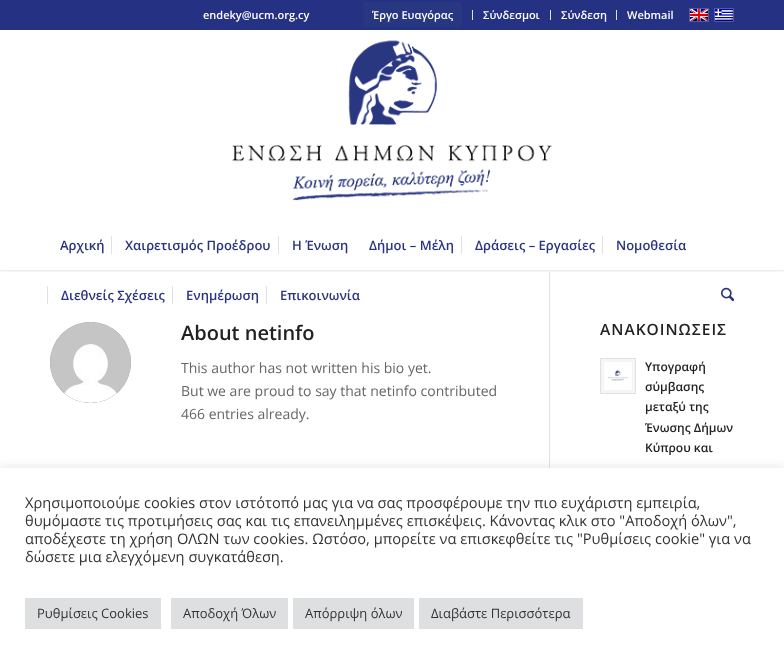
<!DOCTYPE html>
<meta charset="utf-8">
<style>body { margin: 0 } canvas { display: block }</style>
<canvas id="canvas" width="784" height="659"></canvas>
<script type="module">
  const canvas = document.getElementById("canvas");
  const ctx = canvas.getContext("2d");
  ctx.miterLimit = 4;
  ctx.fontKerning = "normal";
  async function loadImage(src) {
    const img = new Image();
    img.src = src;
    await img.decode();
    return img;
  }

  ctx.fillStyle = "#ffffff";
  ctx.fillRect(0, 0, 784, 659);
  ctx.fillStyle = "#e1e1e1";
  ctx.fillRect(549, 272, 1, 196);
  ctx.save();
  ctx.beginPath();
  ctx.rect(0, 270, 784, 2);
  ctx.clip();
  ctx.fillStyle = "rgba(0, 0, 0, 0.1)";
  ctx.filter = "blur(1px)";
  ctx.beginPath();
  ctx.rect(-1, -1, 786, 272);
  ctx.fill();
  ctx.filter = "none";
  ctx.restore();
  ctx.fillStyle = "#253183";
  ctx.fillRect(0, 0, 784, 30);
  ctx.font = "600 11px Open Sans";
  ctx.fillStyle = "#ffffff";
  ctx.fillText("endeky@ucm.org.cy", 203, 19);
  ctx.fillStyle = "#e1e1e1";
  ctx.fillRect(472, 10, 1, 10);
  ctx.fillStyle = "#283781";
  ctx.beginPath();
  ctx.roundRect(363, 2, 99, 25, 3);
  ctx.fill();
  ctx.fillStyle = "#ffffff";
  ctx.fillText("Έργο Ευαγόρας", 372, 19);
  ctx.fillStyle = "#e1e1e1";
  ctx.fillRect(550, 10, 1, 10);
  ctx.fillStyle = "#ffffff";
  ctx.fillText("Σύνδεσμοι", 483, 19);
  ctx.fillStyle = "#e1e1e1";
  ctx.fillRect(616, 10, 1, 10);
  ctx.fillStyle = "#ffffff";
  ctx.fillText("Σύνδεση", 561, 19);
  ctx.fillText("Webmail", 627, 19);
  ctx.strokeStyle = "#515a9c";
  ctx.strokeRect(689.5, 8.5, 19, 13);
  ctx.drawImage(await loadImage("img1.png"), 690, 9, 18, 12);
  ctx.strokeRect(714.5, 8.5, 19, 13);
  ctx.drawImage(await loadImage("img2.png"), 715, 9, 18, 12);
  ctx.drawImage(await loadImage("img3.png"), 232, 40, 320, 161);
  ctx.font = "600 13px Open Sans";
  ctx.fillStyle = "#2b3481";
  ctx.fillText("Αρχική", 60, 250);
  ctx.fillText("Χαιρετισμός Προέδρου", 125, 250);
  ctx.fillStyle = "#e1e1e1";
  ctx.fillRect(111, 236, 1, 18);
  ctx.fillStyle = "#2b3481";
  ctx.fillText("Η Ένωση", 292, 250);
  ctx.fillStyle = "#e1e1e1";
  ctx.fillRect(278, 236, 1, 18);
  ctx.fillStyle = "#2b3481";
  ctx.fillText("Δήμοι – Μέλη", 369, 250);
  ctx.fillText("Δράσεις – Εργασίες", 475, 250);
  ctx.fillStyle = "#e1e1e1";
  ctx.fillRect(461, 236, 1, 18);
  ctx.fillStyle = "#2b3481";
  ctx.fillText("Νομοθεσία", 616, 250);
  ctx.fillStyle = "#e1e1e1";
  ctx.fillRect(602, 236, 1, 18);
  ctx.fillStyle = "#2b3481";
  ctx.fillText("Διεθνείς Σχέσεις", 61, 300);
  ctx.fillStyle = "#e1e1e1";
  ctx.fillRect(47, 286, 1, 18);
  ctx.fillStyle = "#2b3481";
  ctx.fillText("Ενημέρωση", 186, 300);
  ctx.fillStyle = "#e1e1e1";
  ctx.fillRect(172, 286, 1, 18);
  ctx.fillStyle = "#2b3481";
  ctx.fillText("Επικοινωνία", 280, 300);
  ctx.fillStyle = "#e1e1e1";
  ctx.fillRect(266, 286, 1, 18);
  ctx.drawImage(await loadImage("img4.png"), 721, 287, 13, 15);
  ctx.fillStyle = "#919191";
  ctx.beginPath();
  ctx.arc(90.5, 362.5, 40.5, 0, Math.PI * 2);
  ctx.fill();
  ctx.drawImage(await loadImage("img5.png"), 50, 322, 81, 81);
  ctx.font = "600 20px Open Sans";
  ctx.fillStyle = "#222222";
  ctx.fillText("About netinfo", 181, 340);
  ctx.font = "14px Open Sans";
  ctx.fillStyle = "#666666";
  ctx.fillText("This author has not written his bio yet.", 181, 373);
  ctx.fillText("But we are proud to say that netinfo contributed", 181, 396);
  ctx.fillText("466 entries already.", 181, 419);
  ctx.letterSpacing = "1px";
  ctx.font = "600 15.5px Open Sans";
  ctx.fillStyle = "#222222";
  ctx.fillText("ΑΝΑΚΟΙΝΩΣΕΙΣ", 600, 335);
  ctx.fillStyle = "#f5f5f5";
  ctx.beginPath();
  ctx.rect(600.5, 358.5, 35, 35);
  ctx.fill();
  ctx.strokeStyle = "#e1e1e1";
  ctx.stroke();
  ctx.drawImage(await loadImage("img6.png"), 604, 362, 28, 28);
  ctx.letterSpacing = "0px";
  ctx.font = "600 12px Open Sans";
  ctx.fillStyle = "#222222";
  ctx.fillText("Υπογραφή", 645, 371);
  ctx.fillText("σύμβασης", 645, 391);
  ctx.fillText("μεταξύ της", 645, 411);
  ctx.fillText("Ένωσης Δήμων", 645, 432);
  ctx.fillText("Κύπρου και", 645, 452);
  ctx.fillStyle = "rgba(172, 171, 171, 0.3)";
  ctx.filter = "blur(5px)";
  ctx.beginPath();
  ctx.rect(0, 467, 784, 191);
  ctx.fill();
  ctx.filter = "none";
  ctx.fillStyle = "#ffffff";
  ctx.fillRect(0, 468, 784, 191);
  ctx.font = "14.65px Open Sans";
  ctx.fillStyle = "#333333";
  ctx.fillText("Χρησιμοποιούμε cookies στον ιστότοπό μας για να σας προσφέρουμε την πιο ευχάριστη εμπειρία,", 25, 508);
  ctx.fillText("θυμόμαστε τις προτιμήσεις σας και τις επανειλημμένες επισκέψεις. Κάνοντας κλικ στο \"Αποδοχή όλων\",", 25, 526);
  ctx.fillText("αποδέχεστε τη χρήση ΟΛΩΝ των cookies. Ωστόσο, μπορείτε να επισκεφθείτε τις \"Ρυθμίσεις cookie\" για να", 25, 544);
  ctx.fillText("δώσετε μια ελεγχόμενη συγκατάθεση.", 25, 562);
  ctx.fillStyle = "#dedfe0";
  ctx.fillRect(25, 598, 136, 31);
  ctx.font = "13px Open Sans";
  ctx.fillStyle = "#333333";
  ctx.fillText("Ρυθμίσεις Cookies", 37, 618);
  ctx.fillStyle = "#dedfe0";
  ctx.fillRect(171, 598, 117, 31);
  ctx.fillStyle = "#333333";
  ctx.fillText("Αποδοχή Όλων", 183, 618);
  ctx.fillStyle = "#dedfe0";
  ctx.fillRect(293, 598, 121, 31);
  ctx.fillStyle = "#333333";
  ctx.fillText("Απόρριψη όλων", 305, 618);
  ctx.fillStyle = "#dedfe0";
  ctx.fillRect(419, 598, 164, 31);
  ctx.fillStyle = "#333333";
  ctx.fillText("Διαβάστε Περισσότερα", 431, 618);
</script>
